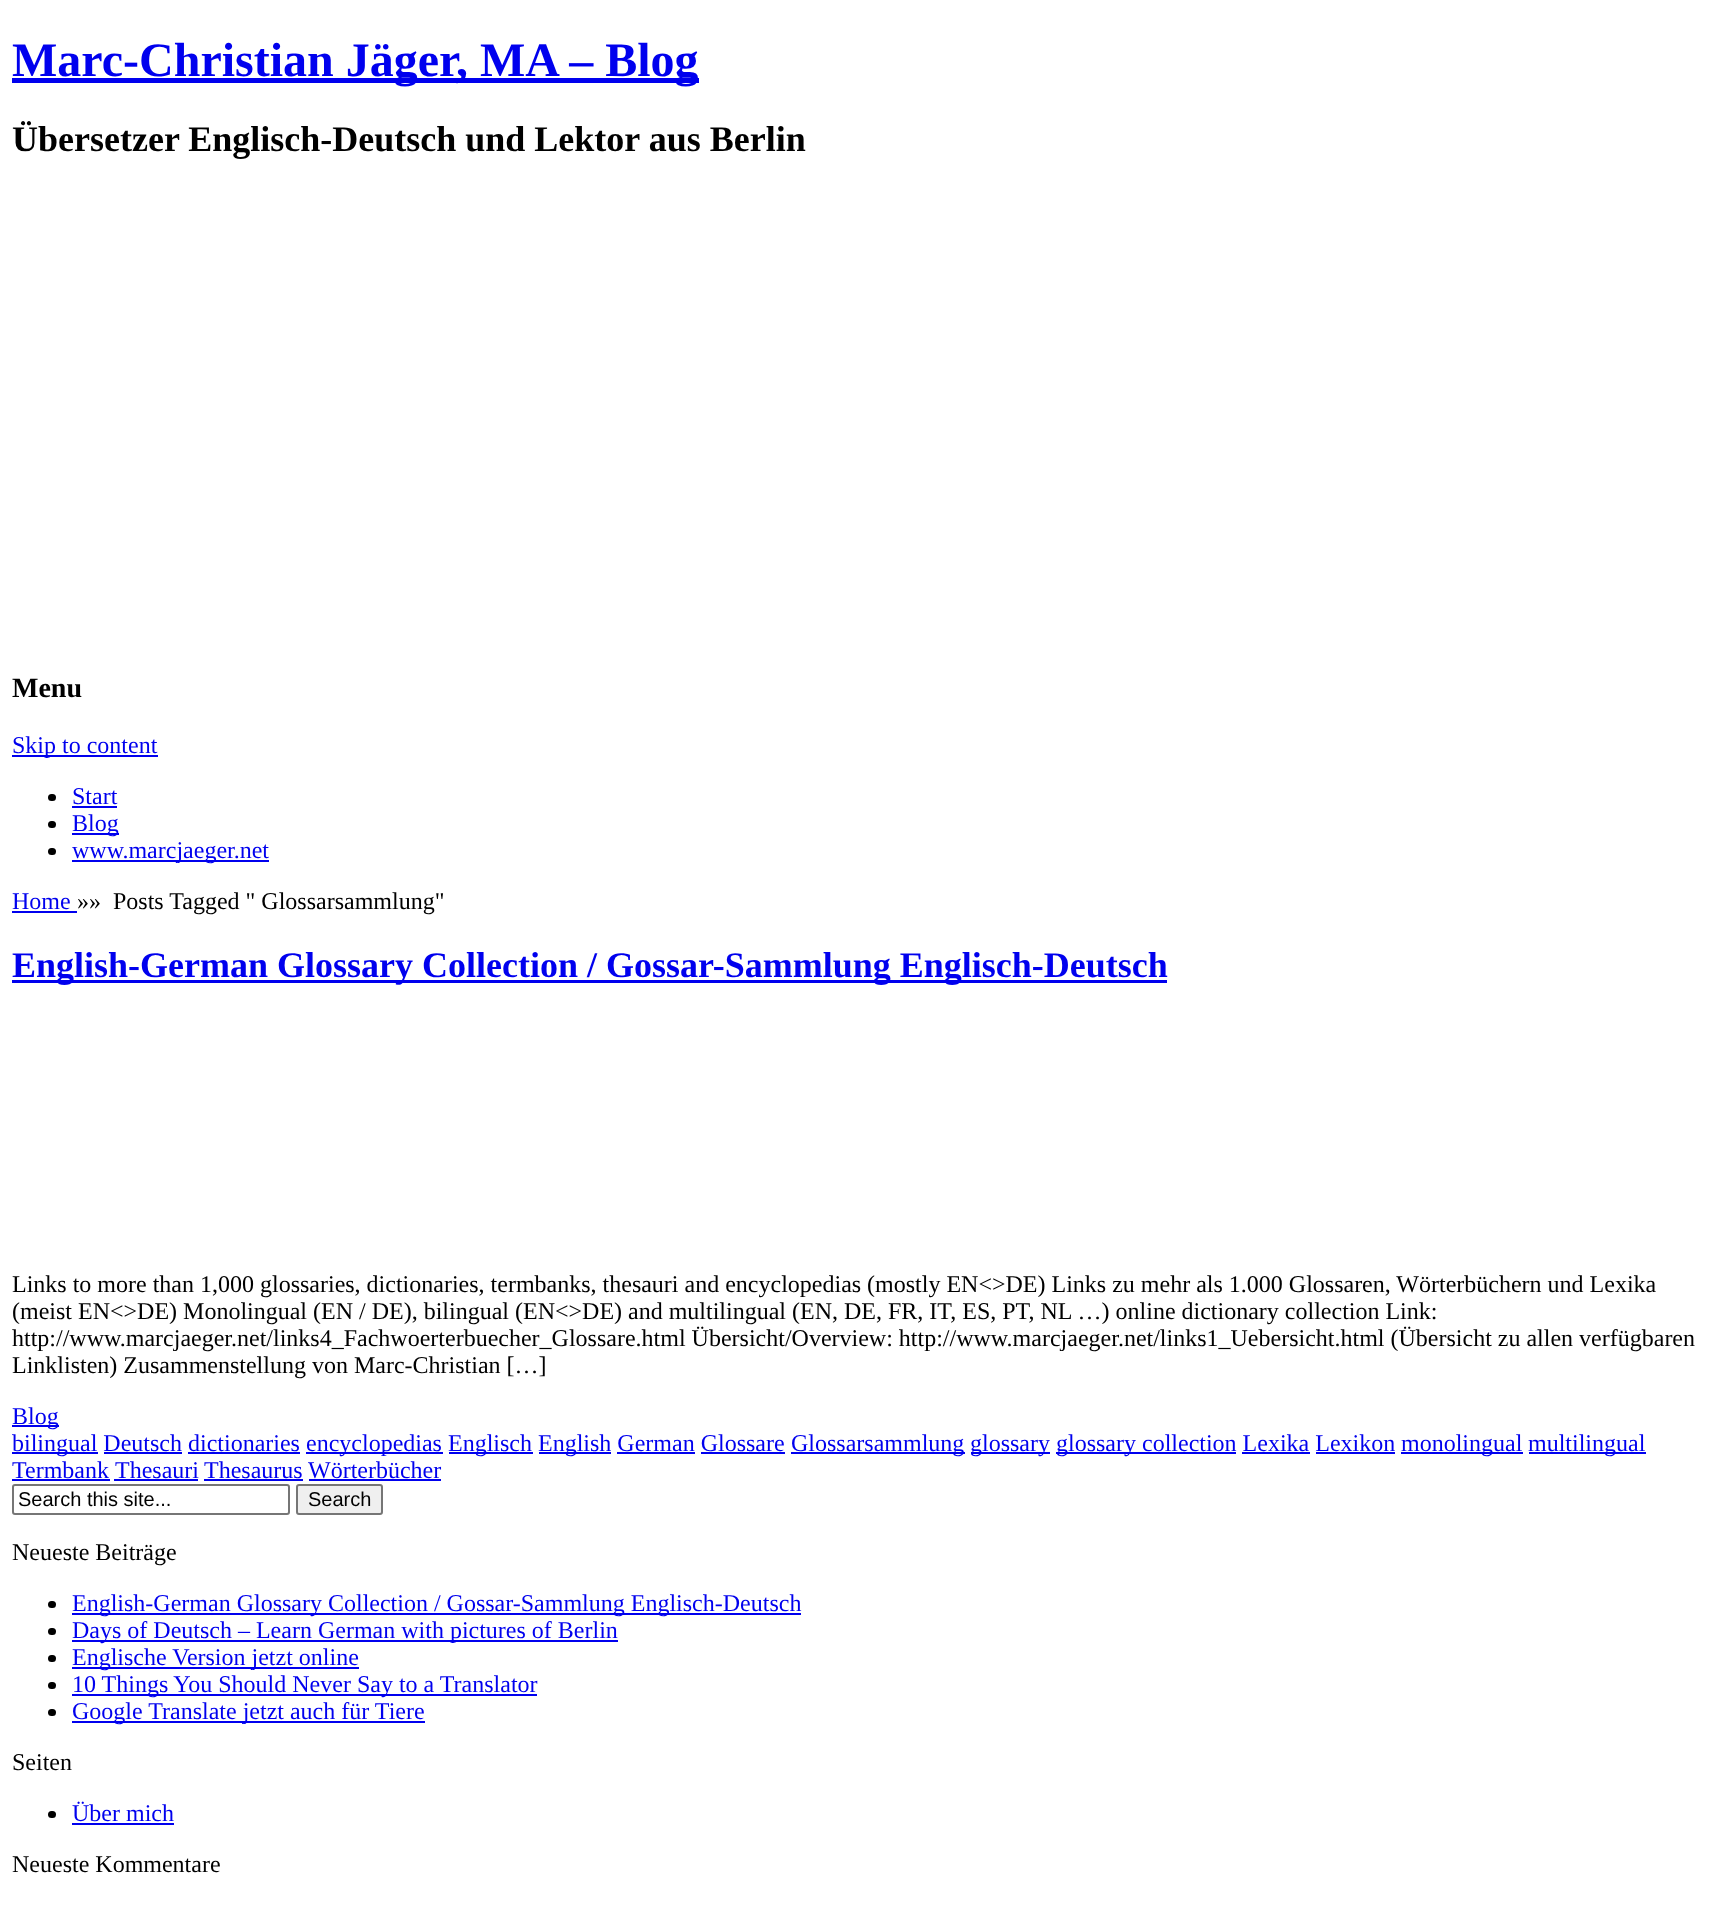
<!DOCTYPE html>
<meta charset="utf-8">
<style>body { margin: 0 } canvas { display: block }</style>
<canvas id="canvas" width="1710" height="1913"></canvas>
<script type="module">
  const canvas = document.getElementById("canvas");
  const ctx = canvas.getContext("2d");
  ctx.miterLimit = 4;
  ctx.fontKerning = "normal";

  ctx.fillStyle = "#ffffff";
  ctx.fillRect(0, 0, 1710, 1913);
  ctx.fillStyle = "#0000ee";
  ctx.fillRect(12, 78, 687, 5);
  ctx.font = "bold 48px Liberation Serif";
  ctx.fillText("Marc-Christian Jäger, MA – Blog", 12, 76);
  ctx.font = "bold 36px Liberation Serif";
  ctx.fillStyle = "#000000";
  ctx.fillText("Übersetzer Englisch-Deutsch und Lektor aus Berlin", 12, 151);
  ctx.font = "bold 28px Liberation Serif";
  ctx.fillText("Menu", 12, 697);
  ctx.fillStyle = "#0000ee";
  ctx.fillRect(12, 755, 146, 2);
  ctx.font = "24px Liberation Serif";
  ctx.fillText("Skip to content", 12, 753);
  ctx.fillStyle = "#000000";
  ctx.beginPath();
  ctx.roundRect(48, 794, 8, 7, 3.5);
  ctx.fill();
  ctx.fillStyle = "#0000ee";
  ctx.fillText("Start", 72, 804);
  ctx.fillRect(72, 806, 45, 2);
  ctx.fillStyle = "#000000";
  ctx.beginPath();
  ctx.roundRect(48, 821, 8, 7, 3.5);
  ctx.fill();
  ctx.fillStyle = "#0000ee";
  ctx.fillRect(72, 833, 47, 2);
  ctx.fillText("Blog", 72, 831);
  ctx.fillStyle = "#000000";
  ctx.beginPath();
  ctx.roundRect(48, 848, 8, 7, 3.5);
  ctx.fill();
  ctx.fillStyle = "#0000ee";
  ctx.fillRect(72, 860, 197, 2);
  ctx.fillText("www.marcjaeger.net", 72, 858);
  ctx.fillText("Home", 12, 909);
  ctx.fillRect(12, 911, 65, 2);
  ctx.fillStyle = "#000000";
  ctx.fillText("»»", 77, 909);
  ctx.fillText("Posts Tagged \" Glossarsammlung\"", 113, 909);
  ctx.fillStyle = "#0000ee";
  ctx.fillRect(12, 980, 1155, 3);
  ctx.font = "bold 36px Liberation Serif";
  ctx.fillText("English-German Glossary Collection / Gossar-Sammlung Englisch-Deutsch", 12, 977);
  ctx.font = "24px Liberation Serif";
  ctx.fillStyle = "#000000";
  ctx.fillText("Links to more than 1,000 glossaries, dictionaries, termbanks, thesauri and encyclopedias (mostly EN<>DE) Links zu mehr als 1.000 Glossaren, Wörterbüchern und Lexika", 12, 1292);
  ctx.fillText("(meist EN<>DE) Monolingual (EN / DE), bilingual (EN<>DE) and multilingual (EN, DE, FR, IT, ES, PT, NL …) online dictionary collection Link:", 12, 1319);
  ctx.fillText("http://www.marcjaeger.net/links4_Fachwoerterbuecher_Glossare.html Übersicht/Overview: http://www.marcjaeger.net/links1_Uebersicht.html (Übersicht zu allen verfügbaren", 12, 1346);
  ctx.fillText("Linklisten) Zusammenstellung von Marc-Christian […]", 12, 1373);
  ctx.fillStyle = "#0000ee";
  ctx.fillRect(12, 1425, 47, 2);
  ctx.fillText("Blog", 12, 1424);
  ctx.fillRect(12, 1452, 86, 2);
  ctx.fillText("bilingual Deutsch dictionaries", 12, 1451);
  ctx.fillRect(306, 1452, 137, 2);
  ctx.fillText("encyclopedias", 306, 1451);
  ctx.fillRect(449, 1452, 84, 2);
  ctx.fillText("Englisch", 448, 1451);
  ctx.fillRect(539, 1452, 72, 2);
  ctx.fillText("English German Glossare", 538, 1451);
  ctx.fillRect(791, 1452, 174, 2);
  ctx.fillText("Glossarsammlung", 791, 1451);
  ctx.fillRect(971, 1452, 79, 2);
  ctx.fillText("glossary", 970, 1451);
  ctx.fillRect(1056, 1452, 180, 2);
  ctx.fillText("glossary collection Lexika Lexikon", 1056, 1451);
  ctx.fillRect(1401, 1452, 122, 2);
  ctx.fillText("monolingual", 1401, 1451);
  ctx.fillRect(1529, 1452, 117, 2);
  ctx.fillText("multilingual", 1528, 1451);
  ctx.fillRect(104, 1452, 78, 2);
  ctx.fillRect(188, 1452, 112, 2);
  ctx.fillRect(617, 1452, 78, 2);
  ctx.fillRect(701, 1452, 84, 2);
  ctx.fillRect(1242, 1452, 68, 2);
  ctx.fillRect(1316, 1452, 79, 2);
  ctx.fillText("Termbank", 12, 1478);
  ctx.fillRect(12, 1479, 98, 2);
  ctx.fillText("Thesauri", 115, 1478);
  ctx.fillRect(114, 1479, 84, 2);
  ctx.fillText("Thesaurus", 204, 1478);
  ctx.fillRect(204, 1479, 99, 2);
  ctx.fillText("Wörterbücher", 308, 1478);
  ctx.fillRect(309, 1479, 132, 2);
  ctx.beginPath();
  ctx.roundRect(13, 1485, 276, 29, 2);
  ctx.strokeStyle = "#767676";
  ctx.lineWidth = 2;
  ctx.stroke();
  ctx.font = "20px Liberation Sans";
  ctx.fillStyle = "#000000";
  ctx.fillText("Search this site...", 18, 1506);
  ctx.fillStyle = "#efefef";
  ctx.beginPath();
  ctx.roundRect(297, 1485, 85, 29, 2);
  ctx.fill();
  ctx.stroke();
  ctx.fillStyle = "#000000";
  ctx.fillText("Search", 308, 1506);
  ctx.font = "24px Liberation Serif";
  ctx.fillText("Neueste Beiträge", 12, 1560);
  ctx.beginPath();
  ctx.roundRect(48, 1601, 8, 7, 3.5);
  ctx.fill();
  ctx.fillStyle = "#0000ee";
  ctx.fillRect(72, 1613, 729, 2);
  ctx.fillText("English-German Glossary Collection / Gossar-Sammlung Englisch-Deutsch", 72, 1611);
  ctx.fillStyle = "#000000";
  ctx.beginPath();
  ctx.roundRect(48, 1628, 8, 7, 3.5);
  ctx.fill();
  ctx.fillStyle = "#0000ee";
  ctx.fillRect(72, 1640, 546, 2);
  ctx.fillText("Days of Deutsch – Learn German with pictures of Berlin", 72, 1638);
  ctx.fillStyle = "#000000";
  ctx.beginPath();
  ctx.roundRect(48, 1655, 8, 7, 3.5);
  ctx.fill();
  ctx.fillStyle = "#0000ee";
  ctx.fillRect(72, 1667, 287, 2);
  ctx.fillText("Englische Version jetzt online", 72, 1665);
  ctx.fillStyle = "#000000";
  ctx.beginPath();
  ctx.roundRect(48, 1682, 8, 7, 3.5);
  ctx.fill();
  ctx.fillStyle = "#0000ee";
  ctx.fillRect(72, 1694, 465, 2);
  ctx.fillText("10 Things You Should Never Say to a Translator", 72, 1692);
  ctx.fillStyle = "#000000";
  ctx.beginPath();
  ctx.roundRect(48, 1709, 8, 7, 3.5);
  ctx.fill();
  ctx.fillStyle = "#0000ee";
  ctx.fillRect(72, 1721, 353, 2);
  ctx.fillText("Google Translate jetzt auch für Tiere", 72, 1719);
  ctx.fillStyle = "#000000";
  ctx.fillText("Seiten", 12, 1770);
  ctx.beginPath();
  ctx.roundRect(48, 1811, 8, 7, 3.5);
  ctx.fill();
  ctx.fillStyle = "#0000ee";
  ctx.fillText("Über mich", 72, 1821);
  ctx.fillRect(72, 1823, 102, 2);
  ctx.fillStyle = "#000000";
  ctx.fillText("Neueste Kommentare", 12, 1872);
</script>
